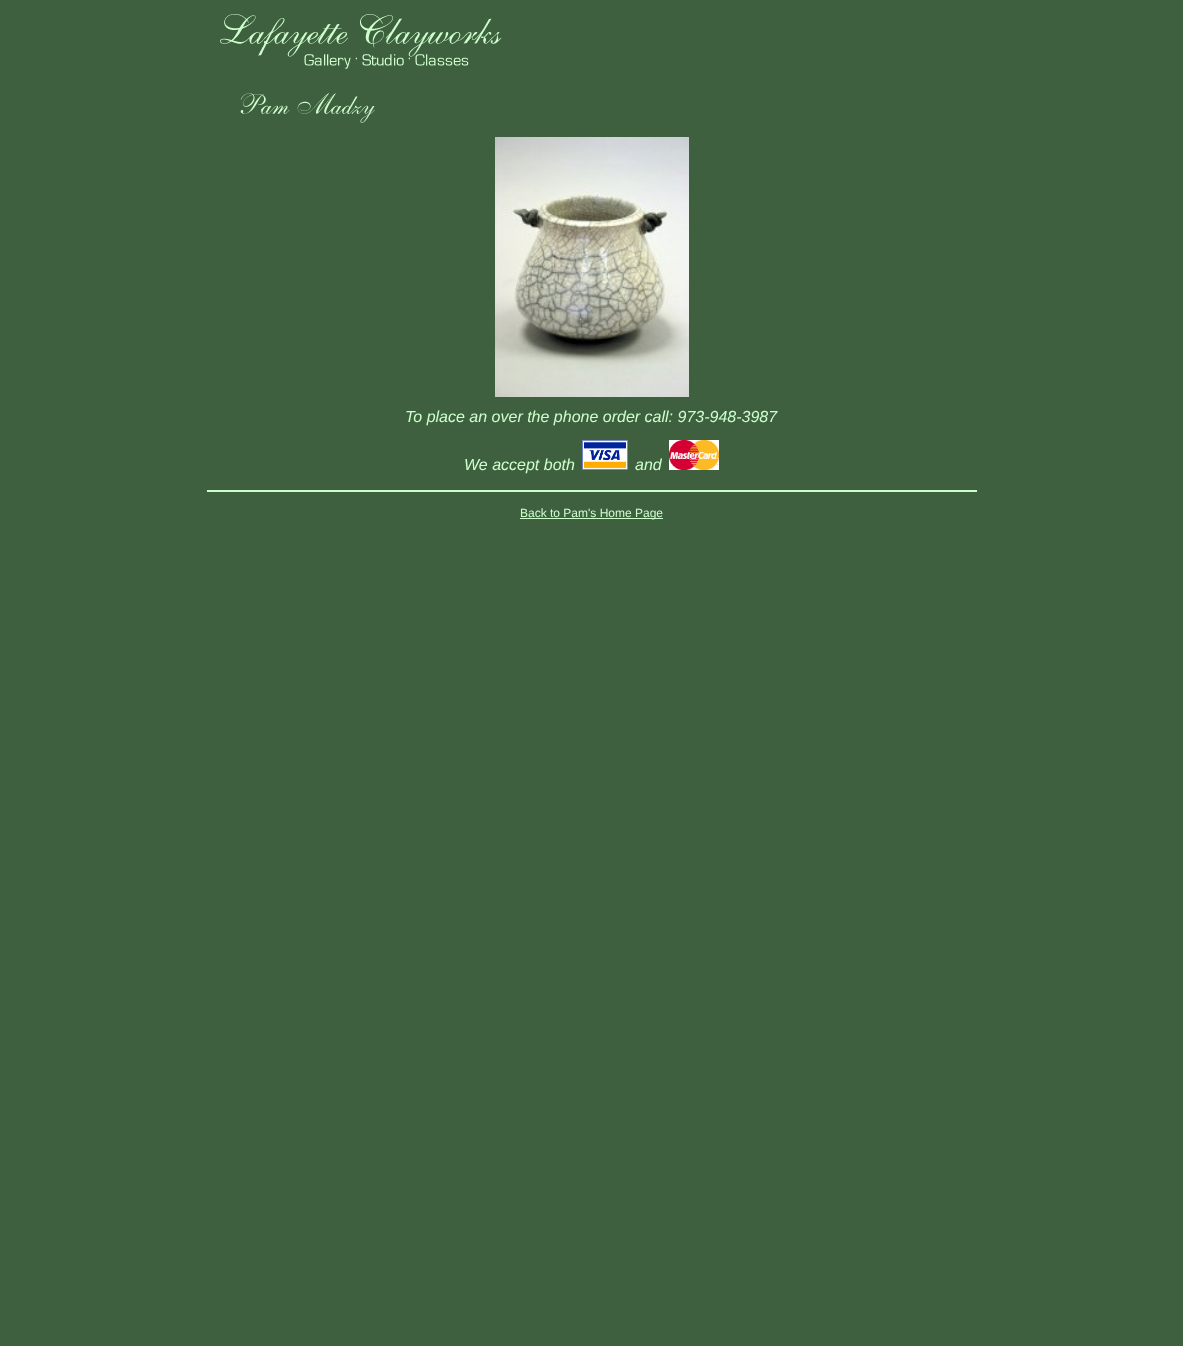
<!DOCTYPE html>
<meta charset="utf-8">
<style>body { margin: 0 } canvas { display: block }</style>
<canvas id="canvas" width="1183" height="1346"></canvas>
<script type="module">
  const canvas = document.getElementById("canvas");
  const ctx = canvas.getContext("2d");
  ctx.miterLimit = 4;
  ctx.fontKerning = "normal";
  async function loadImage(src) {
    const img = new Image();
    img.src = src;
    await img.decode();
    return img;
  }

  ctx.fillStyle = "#3e603f";
  ctx.fillRect(0, 0, 1183, 1346);
  ctx.drawImage(await loadImage("img1.png"), 220, 14, 282, 55);
  ctx.drawImage(await loadImage("img2.png"), 240, 93, 135, 30);
  ctx.drawImage(await loadImage("img3.png"), 495, 137, 194, 260);
  ctx.font = "italic 16px Liberation Sans";
  ctx.fillStyle = "#ccffcc";
  ctx.fillText("To place an over the phone order call: 973-948-3987", 405, 422);
  ctx.fillText("We accept both", 464, 470);
  ctx.drawImage(await loadImage("img4.png"), 582, 440, 46, 30);
  ctx.fillText("and", 635, 470);
  ctx.drawImage(await loadImage("img5.png"), 669, 440, 50, 30);
  ctx.fillRect(207, 490, 770, 2);
  ctx.fillRect(520, 518, 143, 1);
  ctx.font = "12px Liberation Sans";
  ctx.fillText("Back to Pam's Home Page", 520, 517);
</script>
